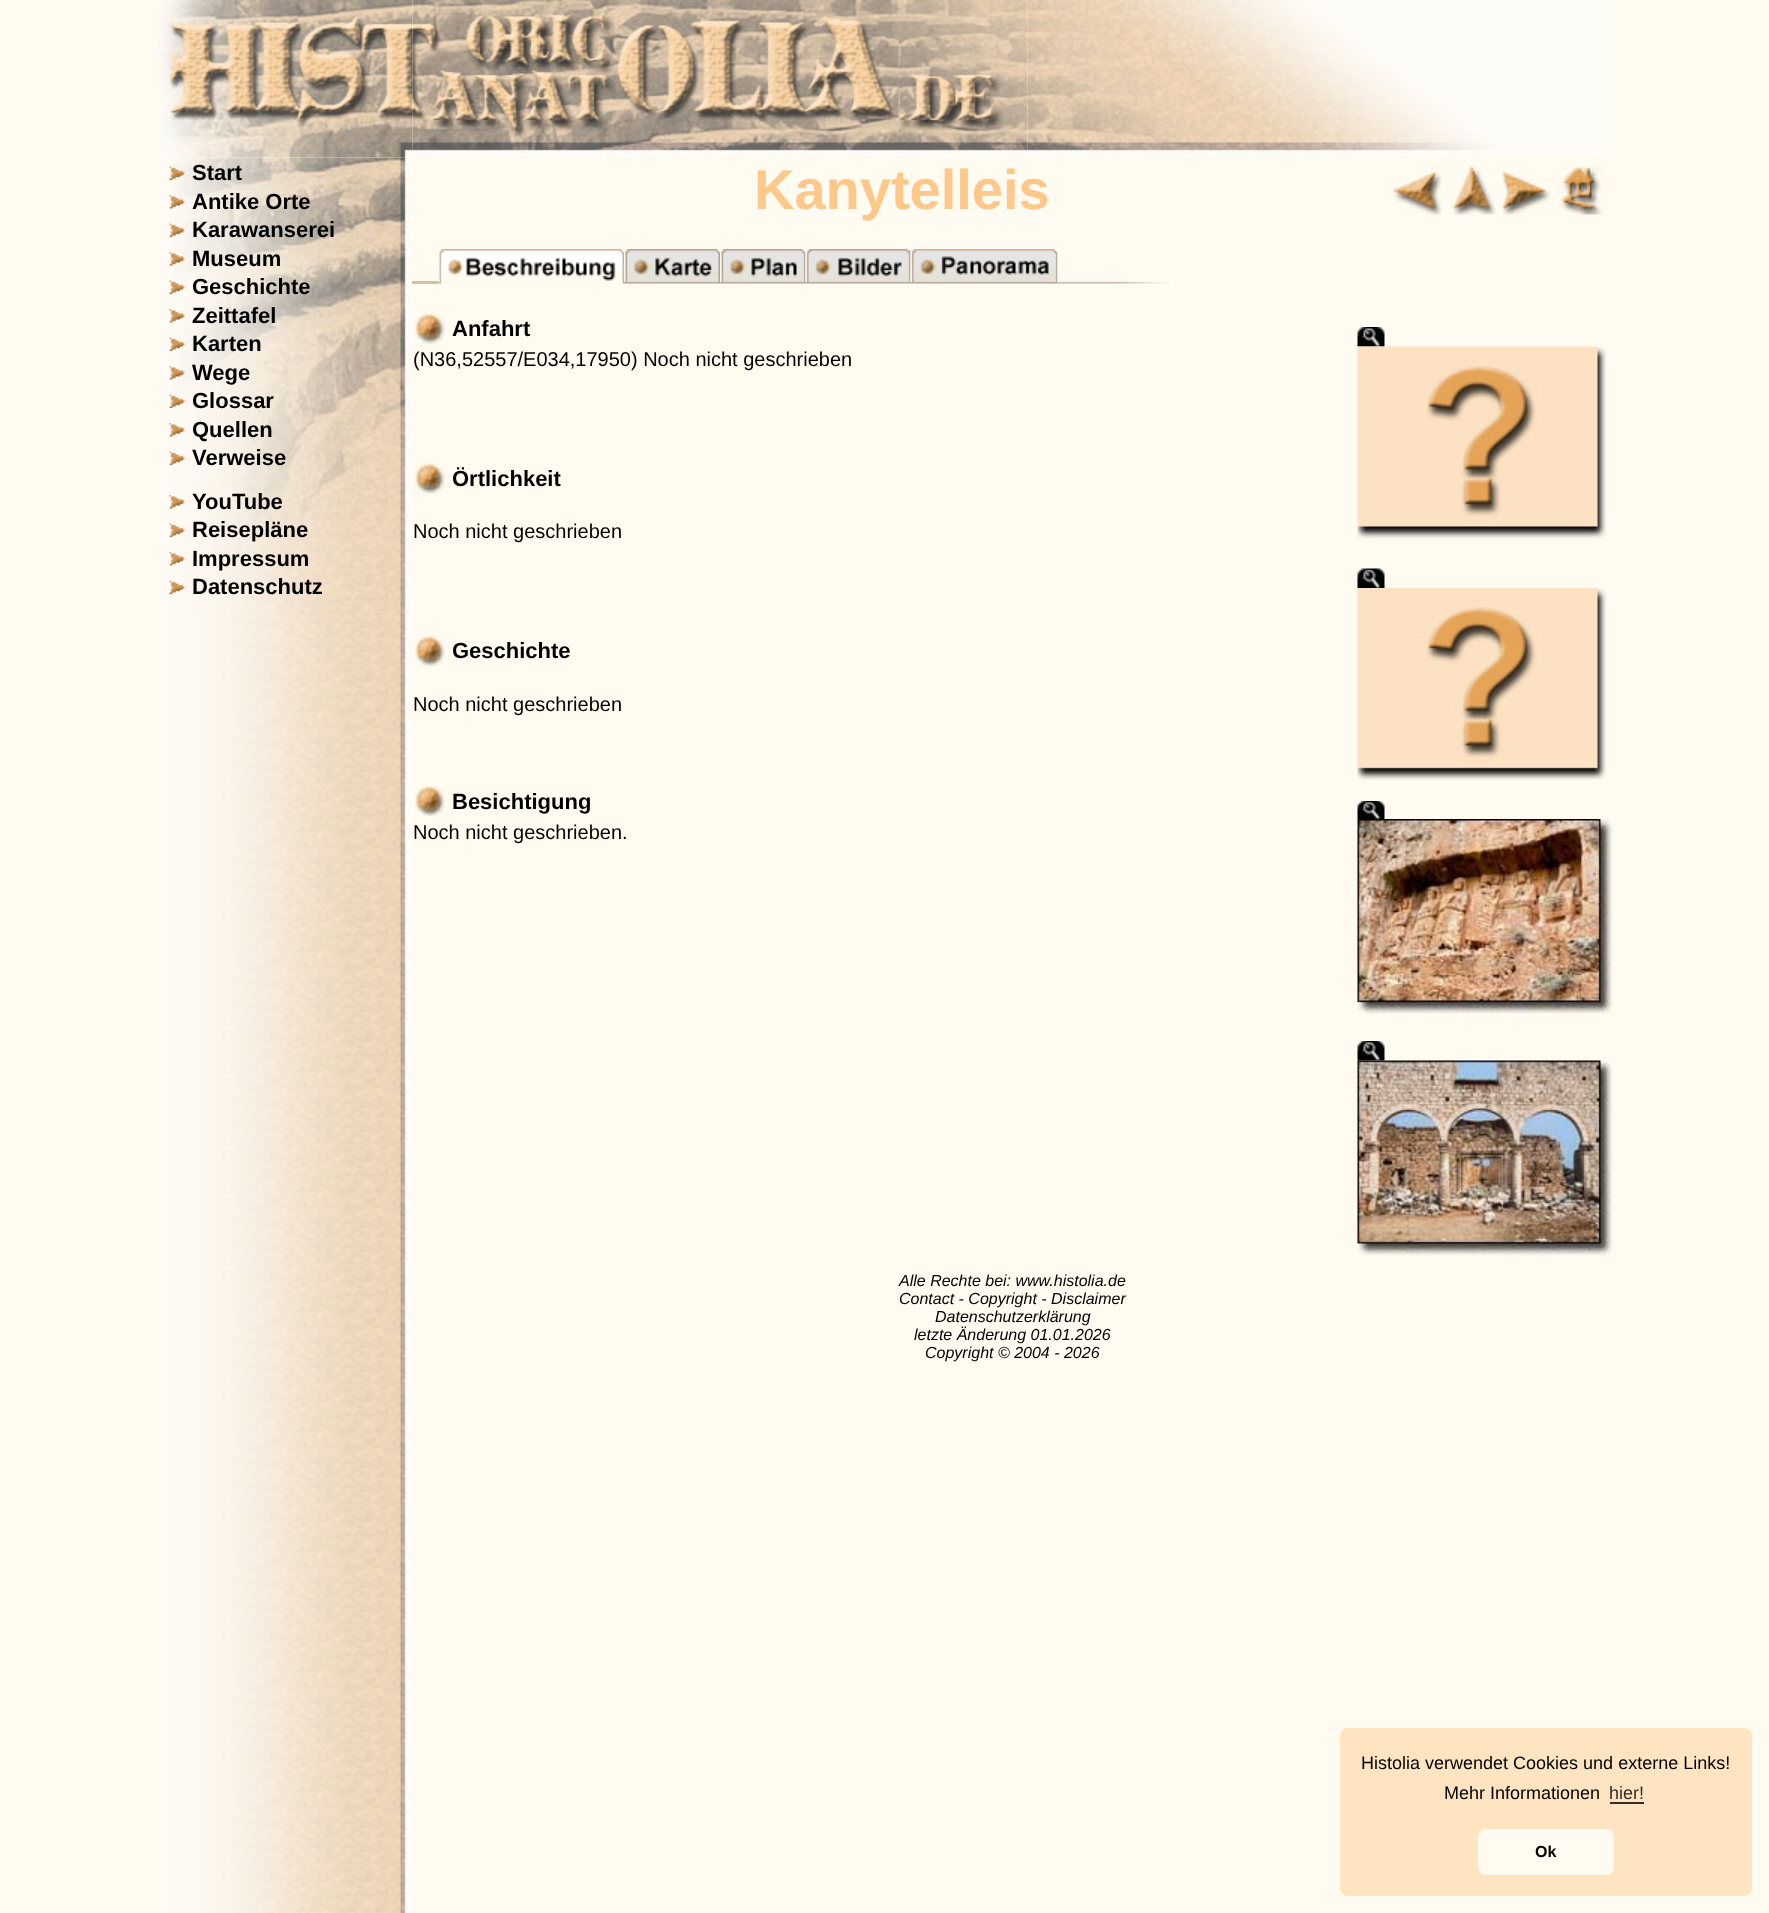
<!DOCTYPE html>
<meta charset="utf-8">
<style>body { margin: 0 } canvas { display: block }</style>
<canvas id="canvas" width="1769" height="1913"></canvas>
<script type="module">
  const canvas = document.getElementById("canvas");
  const ctx = canvas.getContext("2d");
  ctx.miterLimit = 4;
  ctx.fontKerning = "normal";
  async function loadImage(src) {
    const img = new Image();
    img.src = src;
    await img.decode();
    return img;
  }

  ctx.fillStyle = "#fffbf0";
  ctx.fillRect(0, 0, 1769, 1913);
  ctx.drawImage(await loadImage("img1.png"), 158, 0, 255, 158);
  ctx.drawImage(await loadImage("img2.png"), 412, 0, 616, 157);
  ctx.drawImage(await loadImage("img3.png"), 1027, 0, 585, 157);
  ctx.drawImage(await loadImage("img4.png"), 158, 157, 254, 1756);
  ctx.drawImage(await loadImage("img5.png"), 173, 157, 237, 458);
  ctx.drawImage(await loadImage("img6.png"), 169, 166, 16, 14);
  ctx.font = "bold 22px Liberation Sans";
  ctx.fillStyle = "#000000";
  ctx.fillText("Start", 192, 180);
  ctx.drawImage(await loadImage("img7.png"), 169, 195, 16, 14);
  ctx.fillText("Antike Orte", 192, 209);
  ctx.drawImage(await loadImage("img8.png"), 169, 223, 16, 14);
  ctx.fillText("Karawanserei", 192, 237);
  ctx.drawImage(await loadImage("img9.png"), 169, 252, 16, 14);
  ctx.fillText("Museum", 192, 266);
  ctx.drawImage(await loadImage("img10.png"), 169, 280, 16, 14);
  ctx.fillText("Geschichte", 192, 294);
  ctx.drawImage(await loadImage("img11.png"), 169, 309, 16, 14);
  ctx.fillText("Zeittafel", 192, 323);
  ctx.drawImage(await loadImage("img12.png"), 169, 337, 16, 14);
  ctx.fillText("Karten", 192, 351);
  ctx.drawImage(await loadImage("img13.png"), 169, 366, 16, 14);
  ctx.fillText("Wege", 192, 380);
  ctx.drawImage(await loadImage("img14.png"), 169, 394, 16, 14);
  ctx.fillText("Glossar", 192, 408);
  ctx.drawImage(await loadImage("img15.png"), 169, 423, 16, 14);
  ctx.fillText("Quellen", 192, 437);
  ctx.drawImage(await loadImage("img16.png"), 169, 451, 16, 14);
  ctx.fillText("Verweise", 192, 465);
  ctx.drawImage(await loadImage("img17.png"), 169, 495, 16, 14);
  ctx.fillText("YouTube", 192, 509);
  ctx.drawImage(await loadImage("img18.png"), 169, 523, 16, 14);
  ctx.fillText("Reisepläne", 192, 537);
  ctx.drawImage(await loadImage("img19.png"), 169, 552, 16, 14);
  ctx.fillText("Impressum", 192, 566);
  ctx.drawImage(await loadImage("img20.png"), 169, 580, 16, 14);
  ctx.fillText("Datenschutz", 192, 594);
  ctx.font = "bold 56px Liberation Sans";
  ctx.fillStyle = "#fdc889";
  ctx.fillText("Kanytelleis", 754, 209);
  ctx.drawImage(await loadImage("img21.png"), 1393, 166, 49, 49);
  ctx.drawImage(await loadImage("img22.png"), 1447, 166, 49, 49);
  ctx.drawImage(await loadImage("img23.png"), 1501, 166, 49, 49);
  ctx.drawImage(await loadImage("img24.png"), 1558, 166, 47, 49);
  ctx.fillStyle = "#d3bea8";
  ctx.fillRect(412, 281, 26, 3);
  ctx.drawImage(await loadImage("img25.png"), 438, 249, 186, 35);
  ctx.drawImage(await loadImage("img26.png"), 624, 249, 96, 35);
  ctx.drawImage(await loadImage("img27.png"), 720, 249, 86, 35);
  ctx.drawImage(await loadImage("img28.png"), 805, 249, 106, 35);
  ctx.drawImage(await loadImage("img29.png"), 910, 249, 148, 35);
  ctx.drawImage(await loadImage("img30.png"), 1057, 252, 112, 32);
  ctx.drawImage(await loadImage("img31.png"), 415, 313, 30, 31);
  ctx.font = "bold 22px Liberation Sans";
  ctx.fillStyle = "#000000";
  ctx.fillText("Anfahrt", 452, 336);
  ctx.drawImage(await loadImage("img32.png"), 1357, 327, 28, 20);
  ctx.font = "20px Liberation Sans";
  ctx.fillText("(N36,52557/E034,17950) Noch nicht geschrieben", 413, 366);
  ctx.drawImage(await loadImage("img33.png"), 1357, 346, 250, 193);
  ctx.drawImage(await loadImage("img34.png"), 1357, 568, 28, 20);
  ctx.drawImage(await loadImage("img35.png"), 1357, 588, 250, 192);
  ctx.drawImage(await loadImage("img31.png"), 415, 463, 30, 31);
  ctx.font = "bold 22px Liberation Sans";
  ctx.fillText("Örtlichkeit", 452, 486);
  ctx.font = "20px Liberation Sans";
  ctx.fillText("Noch nicht geschrieben", 413, 538);
  ctx.drawImage(await loadImage("img36.png"), 415, 636, 30, 30);
  ctx.font = "bold 22px Liberation Sans";
  ctx.fillText("Geschichte", 452, 658);
  ctx.font = "20px Liberation Sans";
  ctx.fillText("Noch nicht geschrieben", 413, 711);
  ctx.drawImage(await loadImage("img36.png"), 415, 786, 30, 30);
  ctx.font = "bold 22px Liberation Sans";
  ctx.fillText("Besichtigung", 452, 809);
  ctx.drawImage(await loadImage("img37.png"), 1357, 801, 28, 18);
  ctx.font = "20px Liberation Sans";
  ctx.fillText("Noch nicht geschrieben.", 413, 839);
  ctx.drawImage(await loadImage("img38.png"), 1357, 819, 256, 195);
  ctx.drawImage(await loadImage("img32.png"), 1357, 1041, 28, 20);
  ctx.drawImage(await loadImage("img39.png"), 1357, 1060, 256, 196);
  ctx.font = "italic 16px Liberation Sans";
  ctx.fillText("Alle Rechte bei: www.histolia.de", 899, 1286);
  ctx.fillText("Contact - Copyright - Disclaimer", 899, 1304);
  ctx.fillText("Datenschutzerklärung", 935, 1322);
  ctx.fillText("letzte Änderung 01.01.2026", 914, 1340);
  ctx.fillText("Copyright © 2004 - 2026", 925, 1358);
  ctx.fillStyle = "#fee4c1";
  ctx.beginPath();
  ctx.roundRect(1340, 1728, 412, 168, 8);
  ctx.fill();
  ctx.font = "18px Liberation Sans";
  ctx.fillStyle = "#000000";
  ctx.fillText("Histolia verwendet Cookies und externe Links!", 1361, 1769);
  ctx.fillText("Mehr Informationen", 1444, 1799);
  ctx.fillStyle = "#332e27";
  ctx.fillText("hier!", 1609, 1799);
  ctx.fillRect(1610, 1802, 34, 2);
  ctx.fillStyle = "#fffbf0";
  ctx.beginPath();
  ctx.roundRect(1478, 1829, 136, 46, 8);
  ctx.fill();
  ctx.font = "bold 16px Liberation Sans";
  ctx.fillStyle = "#000000";
  ctx.fillText("Ok", 1535, 1857);
</script>
